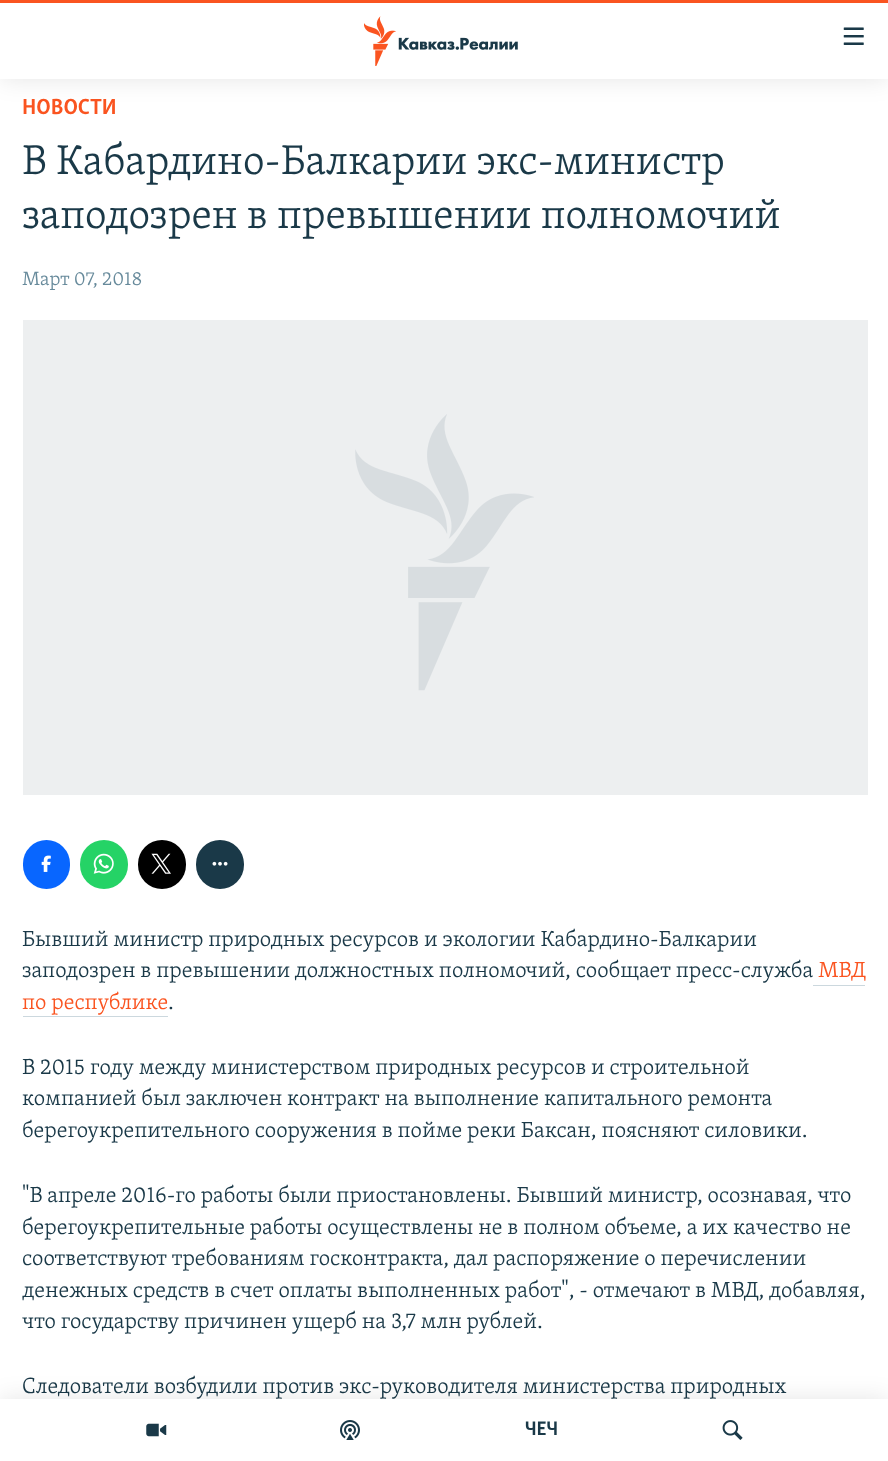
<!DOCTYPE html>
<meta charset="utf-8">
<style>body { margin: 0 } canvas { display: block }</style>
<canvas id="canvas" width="888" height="1461"></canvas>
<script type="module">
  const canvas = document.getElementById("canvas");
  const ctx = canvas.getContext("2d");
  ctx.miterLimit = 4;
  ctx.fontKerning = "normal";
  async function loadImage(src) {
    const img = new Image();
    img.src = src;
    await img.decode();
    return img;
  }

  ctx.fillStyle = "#ffffff";
  ctx.fillRect(0, 0, 888, 1461);
  ctx.font = "bold 22.5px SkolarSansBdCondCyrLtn";
  ctx.fillStyle = "#fa5420";
  ctx.fillText("НОВОСТИ", 22, 114);
  ctx.font = "300 42.75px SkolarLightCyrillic";
  ctx.fillStyle = "#1a3948";
  ctx.fillText("В Кабардино-Балкарии экс-министр", 22, 174);
  ctx.fillText("заподозрен в превышении полномочий", 22, 228);
  ctx.font = "300 19.75px SkolarLightCyrillic";
  ctx.fillStyle = "#678a9b";
  ctx.fillText("Март 07, 2018", 22, 285);
  ctx.fillStyle = "#edeff0";
  ctx.fillRect(23, 320, 845, 475);
  ctx.drawImage(await loadImage("img1.png"), 355, 414, 179, 277);
  ctx.fillStyle = "#0866ff";
  ctx.beginPath();
  ctx.roundRect(23, 840, 47, 49, 23.5);
  ctx.fill();
  ctx.drawImage(await loadImage("img2.png"), 41, 855, 10, 17);
  ctx.fillStyle = "#25d366";
  ctx.beginPath();
  ctx.roundRect(80, 840, 48, 49, 24);
  ctx.fill();
  ctx.drawImage(await loadImage("img3.png"), 93, 853, 21, 21);
  ctx.fillStyle = "#000000";
  ctx.beginPath();
  ctx.roundRect(138, 840, 48, 49, 24);
  ctx.fill();
  ctx.drawImage(await loadImage("img4.png"), 151, 853, 20, 21);
  ctx.fillStyle = "#1a3948";
  ctx.beginPath();
  ctx.roundRect(196, 840, 48, 49, 24);
  ctx.fill();
  ctx.drawImage(await loadImage("img5.png"), 212, 861, 16, 5);
  ctx.font = "300 22.5px SkolarLightCyrillic";
  ctx.fillText("Бывший министр природных ресурсов и экологии Кабардино-Балкарии", 22, 946);
  ctx.fillText("заподозрен в превышении должностных полномочий, сообщает пресс-служба", 22, 977);
  ctx.fillStyle = "#fa5420";
  ctx.fillText("МВД", 818, 977);
  ctx.fillStyle = "#ccd8de";
  ctx.fillRect(813, 985, 52, 1);
  ctx.fillStyle = "#fa5420";
  ctx.fillText("по республике", 22, 1009);
  ctx.fillStyle = "#ccd8de";
  ctx.fillRect(23, 1016, 145, 1);
  ctx.fillStyle = "#1a3948";
  ctx.fillText(".", 168, 1009);
  ctx.fillText("В 2015 году между министерством природных ресурсов и строительной", 22, 1074);
  ctx.fillText("компанией был заключен контракт на выполнение капитального ремонта", 22, 1105);
  ctx.fillText("берегоукрепительного сооружения в пойме реки Баксан, поясняют силовики.", 22, 1137);
  ctx.fillText("\"В апреле 2016-го работы были приостановлены. Бывший министр, осознавая, что", 22, 1202);
  ctx.fillText("берегоукрепительные работы осуществлены не в полном объеме, а их качество не", 22, 1234);
  ctx.fillText("соответствуют требованиям госконтракта, дал распоряжение о перечислении", 22, 1265);
  ctx.fillText("денежных средств в счет оплаты выполненных работ\", - отмечают в МВД, добавляя,", 22, 1297);
  ctx.fillText("что государству причинен ущерб на 3,7 млн рублей.", 22, 1328);
  ctx.fillText("Следователи возбудили против экс-руководителя министерства природных", 22, 1393);
  ctx.fillStyle = "rgba(0, 0, 0, 0.1)";
  ctx.filter = "blur(12.5px)";
  ctx.beginPath();
  ctx.rect(0, 0, 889, 79);
  ctx.fill();
  ctx.filter = "none";
  ctx.fillStyle = "#ffffff";
  ctx.fillRect(0, 3, 888, 76);
  ctx.fillStyle = "#fa5420";
  ctx.fillRect(0, 0, 888, 3);
  ctx.drawImage(await loadImage("img6.png"), 364, 16, 154, 50);
  ctx.drawImage(await loadImage("img7.png"), 843, 27, 21, 18);
  ctx.fillStyle = "rgba(0, 0, 0, 0.1)";
  ctx.filter = "blur(12.5px)";
  ctx.beginPath();
  ctx.rect(0, 1399, 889, 62);
  ctx.fill();
  ctx.filter = "none";
  ctx.fillStyle = "#ffffff";
  ctx.fillRect(0, 1399, 888, 62);
  ctx.drawImage(await loadImage("img8.png"), 146, 1423, 21, 14);
  ctx.drawImage(await loadImage("img9.png"), 340, 1420, 20, 20);
  ctx.font = "bold 20px SkolarSansBdCondCyrLtn";
  ctx.fillStyle = "#1a3948";
  ctx.fillText("ЧЕЧ", 525, 1435);
  ctx.drawImage(await loadImage("img10.png"), 722, 1420, 21, 20);
</script>
